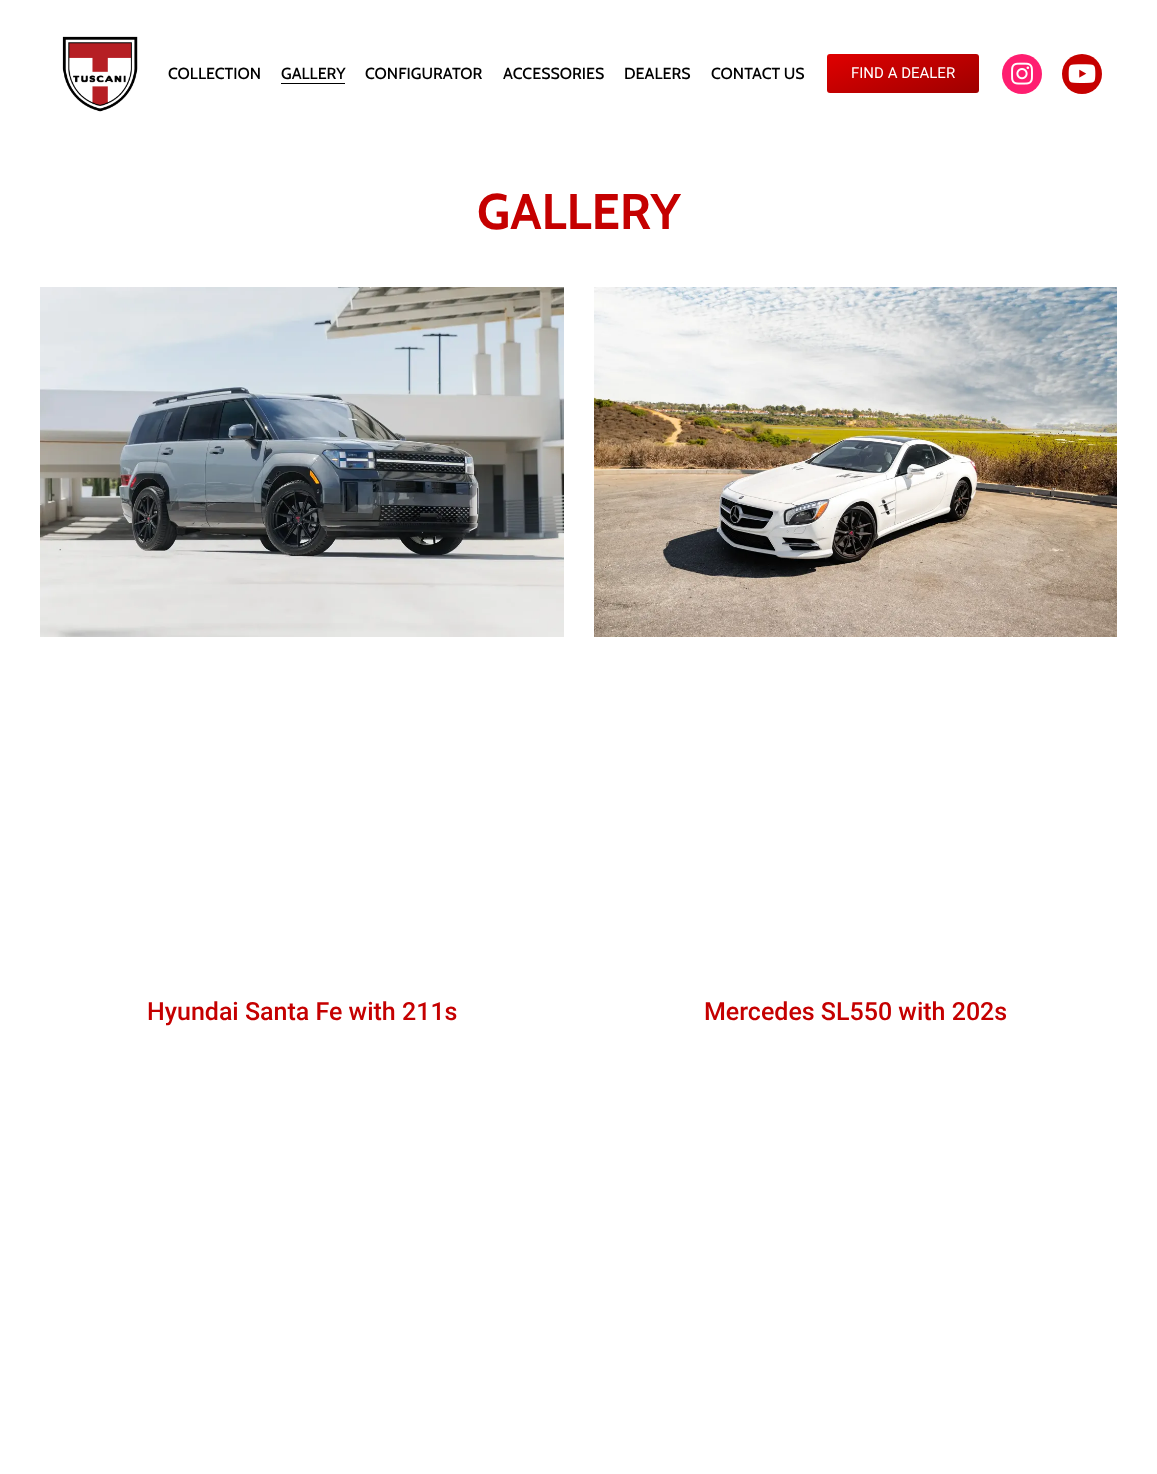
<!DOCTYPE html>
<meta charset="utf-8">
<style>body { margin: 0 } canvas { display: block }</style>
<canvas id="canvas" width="1157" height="1474"></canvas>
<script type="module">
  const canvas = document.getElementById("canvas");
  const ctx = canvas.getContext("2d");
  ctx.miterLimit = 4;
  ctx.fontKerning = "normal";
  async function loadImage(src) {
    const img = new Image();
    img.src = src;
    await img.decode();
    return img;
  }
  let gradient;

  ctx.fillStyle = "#ffffff";
  ctx.fillRect(0, 0, 1157, 1474);
  ctx.drawImage(await loadImage("img1.png"), 62, 36, 76, 76);
  ctx.font = "500 16px Cabin";
  ctx.fillStyle = "#000000";
  ctx.fillText("COLLECTION", 168, 79);
  ctx.fillText("GALLERY", 281, 79);
  ctx.fillRect(281, 83, 64, 1);
  ctx.fillText("CONFIGURATOR", 365, 79);
  ctx.fillText("ACCESSORIES", 503, 79);
  ctx.fillText("DEALERS", 624, 79);
  ctx.fillText("CONTACT US", 711, 79);
  gradient = ctx.createLinearGradient(888, 32, 918, 115);
  gradient.addColorStop(0, "#e00000");
  gradient.addColorStop(1, "#9e0000");
  ctx.fillStyle = gradient;
  ctx.beginPath();
  ctx.roundRect(827, 54, 152, 39, 3);
  ctx.fill();
  ctx.font = "15px Roboto";
  ctx.fillStyle = "#ffffff";
  ctx.fillText("FIND A DEALER", 851, 78);
  ctx.fillStyle = "#ff1e70";
  ctx.beginPath();
  ctx.arc(1022, 74, 20, 0, Math.PI * 2);
  ctx.fill();
  ctx.drawImage(await loadImage("img2.png"), 1011, 62, 22, 23);
  ctx.fillStyle = "#c60000";
  ctx.beginPath();
  ctx.arc(1082, 74, 20, 0, Math.PI * 2);
  ctx.fill();
  ctx.drawImage(await loadImage("img3.png"), 1068, 64, 28, 19);
  ctx.font = "bold 50px Cabin";
  ctx.fillStyle = "#c50000";
  ctx.fillText("GALLERY", 477, 229);
  ctx.drawImage(await loadImage("img4.png"), 40, 287, 524, 350);
  ctx.font = "500 25px Roboto";
  ctx.fillText("Hyundai Santa Fe with 211s", 147, 1020);
  ctx.drawImage(await loadImage("img5.png"), 594, 287, 523, 350);
  ctx.fillText("Mercedes SL550 with 202s", 704, 1020);
</script>
